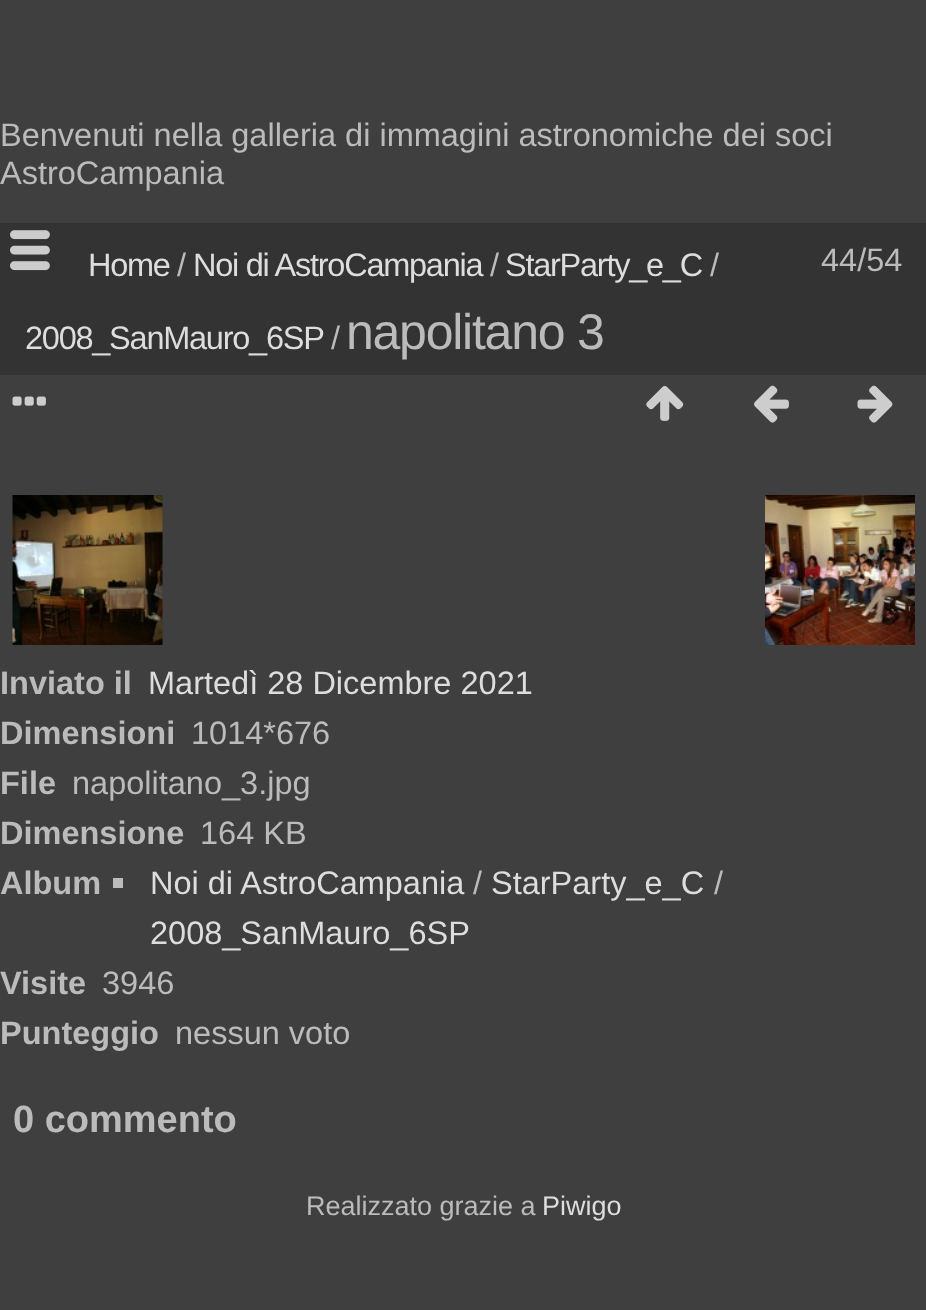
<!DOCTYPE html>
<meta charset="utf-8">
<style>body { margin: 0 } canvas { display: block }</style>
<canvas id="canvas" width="926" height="1310"></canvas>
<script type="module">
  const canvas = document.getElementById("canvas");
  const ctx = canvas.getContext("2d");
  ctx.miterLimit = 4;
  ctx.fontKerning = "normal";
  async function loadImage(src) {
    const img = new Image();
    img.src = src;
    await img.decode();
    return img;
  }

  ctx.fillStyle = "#3f3f3f";
  ctx.fillRect(0, 0, 926, 1310);
  ctx.font = "32.5px Liberation Sans";
  ctx.fillStyle = "#bbbbbb";
  ctx.fillText("Benvenuti nella galleria di immagini astronomiche dei soci", 0, 146);
  ctx.fillText("AstroCampania", 0, 184);
  ctx.fillStyle = "#333333";
  ctx.fillRect(0, 223, 926, 152);
  ctx.drawImage(await loadImage("img1.png"), 10, 230, 40, 41);
  ctx.letterSpacing = "-1.25px";
  ctx.fillStyle = "#dddddd";
  ctx.fillText("Home", 88, 276);
  ctx.fillStyle = "#bbbbbb";
  ctx.fillText("/", 177, 276);
  ctx.fillStyle = "#dddddd";
  ctx.fillText("Noi di AstroCampania", 193, 276);
  ctx.fillStyle = "#bbbbbb";
  ctx.fillText("/", 490, 276);
  ctx.fillStyle = "#dddddd";
  ctx.fillText("StarParty_e_C", 505, 276);
  ctx.fillStyle = "#bbbbbb";
  ctx.fillText("/", 710, 276);
  ctx.fillStyle = "#dddddd";
  ctx.fillText("2008_SanMauro_6SP", 25, 349);
  ctx.fillStyle = "#bbbbbb";
  ctx.fillText("/", 331, 349);
  ctx.font = "50px Liberation Sans";
  ctx.fillText("napolitano 3", 346, 349);
  ctx.letterSpacing = "0px";
  ctx.font = "32.5px Liberation Sans";
  ctx.fillText("44/54", 821, 271);
  ctx.drawImage(await loadImage("img2.png"), 12, 396, 34, 10);
  ctx.drawImage(await loadImage("img3.png"), 646, 385, 38, 36);
  ctx.drawImage(await loadImage("img4.png"), 754, 385, 35, 38);
  ctx.drawImage(await loadImage("img5.png"), 857, 385, 36, 38);
  ctx.drawImage(await loadImage("img6.png"), 12, 495, 151, 150);
  ctx.drawImage(await loadImage("img7.png"), 765, 495, 150, 150);
  ctx.font = "bold 32.5px Liberation Sans";
  ctx.fillText("Inviato il", 0, 694);
  ctx.font = "32.5px Liberation Sans";
  ctx.fillStyle = "#dddddd";
  ctx.fillText("Martedì 28 Dicembre 2021", 148, 694);
  ctx.font = "bold 32.5px Liberation Sans";
  ctx.fillStyle = "#bbbbbb";
  ctx.fillText("Dimensioni", 0, 744);
  ctx.font = "32.5px Liberation Sans";
  ctx.fillText("1014*676", 191, 744);
  ctx.font = "bold 32.5px Liberation Sans";
  ctx.fillText("File", 0, 794);
  ctx.font = "32.5px Liberation Sans";
  ctx.fillText("napolitano_3.jpg", 72, 794);
  ctx.font = "bold 32.5px Liberation Sans";
  ctx.fillText("Dimensione", 0, 844);
  ctx.font = "32.5px Liberation Sans";
  ctx.fillText("164 KB", 200, 844);
  ctx.font = "bold 32.5px Liberation Sans";
  ctx.fillText("Album", 0, 894);
  ctx.fillRect(113, 878, 10, 10);
  ctx.font = "32.5px Liberation Sans";
  ctx.fillStyle = "#dddddd";
  ctx.fillText("Noi di AstroCampania", 150, 894);
  ctx.fillStyle = "#bbbbbb";
  ctx.fillText("/", 473, 894);
  ctx.fillStyle = "#dddddd";
  ctx.fillText("StarParty_e_C", 491, 894);
  ctx.fillStyle = "#bbbbbb";
  ctx.fillText("/", 714, 894);
  ctx.fillStyle = "#dddddd";
  ctx.fillText("2008_SanMauro_6SP", 150, 944);
  ctx.font = "bold 32.5px Liberation Sans";
  ctx.fillStyle = "#bbbbbb";
  ctx.fillText("Visite", 0, 994);
  ctx.font = "32.5px Liberation Sans";
  ctx.fillText("3946", 102, 994);
  ctx.font = "bold 32.5px Liberation Sans";
  ctx.fillText("Punteggio", 0, 1044);
  ctx.font = "32.5px Liberation Sans";
  ctx.fillText("nessun voto", 175, 1044);
  ctx.font = "bold 38px Liberation Sans";
  ctx.fillText("0 commento", 13, 1132);
  ctx.font = "27px Liberation Sans";
  ctx.fillText("Realizzato grazie a", 306, 1215);
  ctx.fillStyle = "#dddddd";
  ctx.fillText("Piwigo", 542, 1215);
</script>
